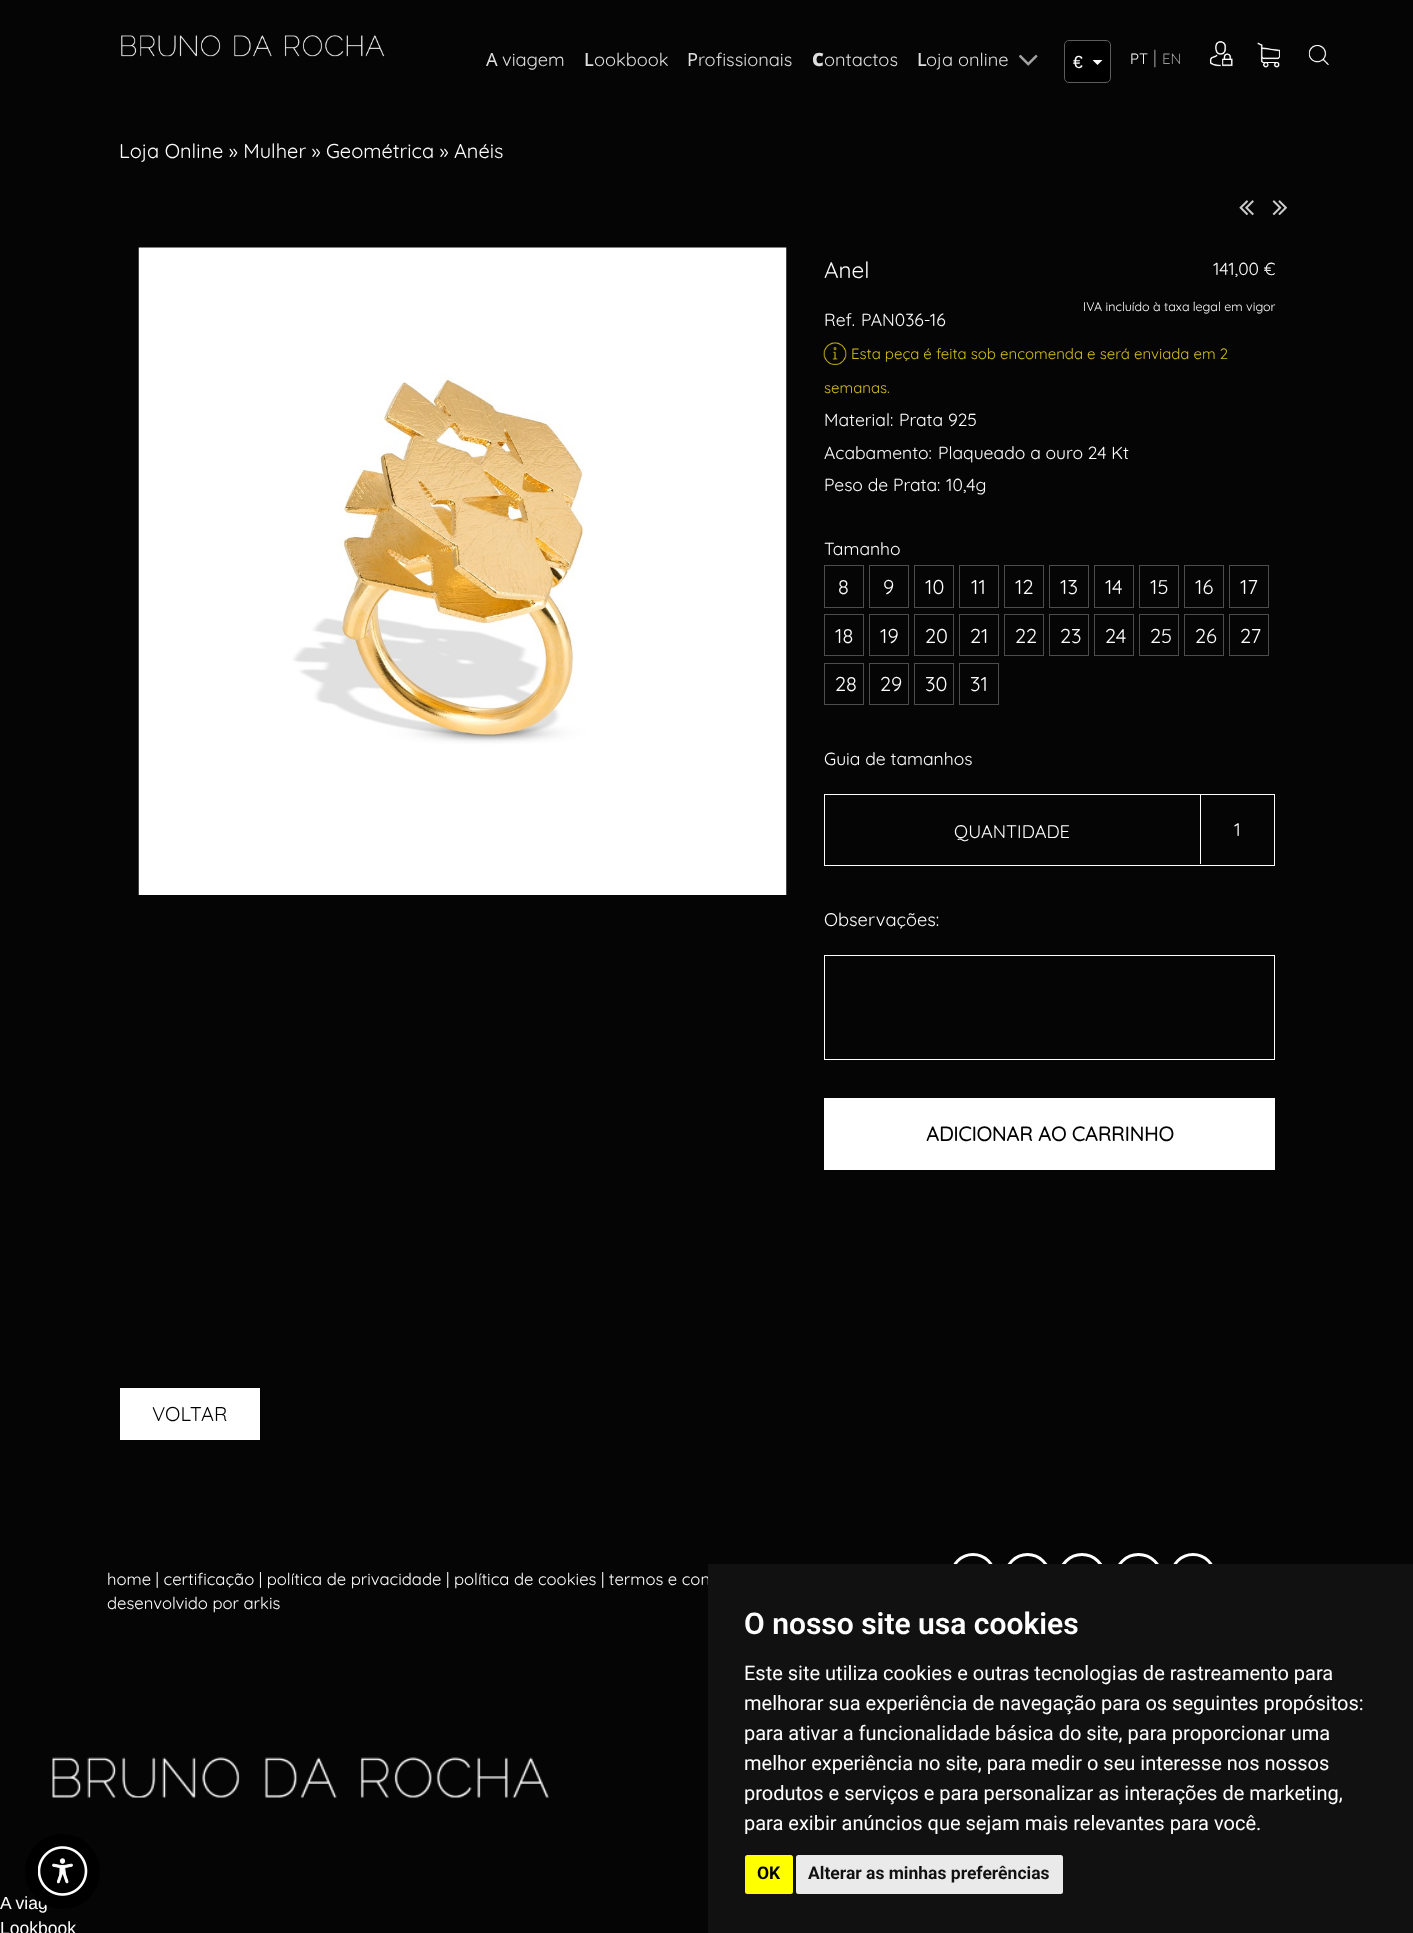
<!DOCTYPE html>
<meta charset="utf-8">
<style>body { margin: 0 } canvas { display: block }</style>
<canvas id="canvas" width="1413" height="1933"></canvas>
<script type="module">
  const canvas = document.getElementById("canvas");
  const ctx = canvas.getContext("2d");
  ctx.miterLimit = 4;
  ctx.fontKerning = "normal";
  async function loadImage(src) {
    const img = new Image();
    img.src = src;
    await img.decode();
    return img;
  }

  ctx.fillStyle = "#050505";
  ctx.fillRect(0, 0, 1413, 1933);
  ctx.drawImage(await loadImage("img1.png"), 121, 35, 264, 22);
  ctx.font = "18.25px Noto Sans";
  ctx.fillStyle = "#dedede";
  ctx.fillText("A", 486, 66);
  ctx.font = "300 18.25px Quicksand";
  ctx.fillText("viagem", 502, 66);
  ctx.font = "500 18.25px Noto Sans";
  ctx.fillText("L", 584, 66);
  ctx.font = "300 18.25px Quicksand";
  ctx.fillText("ookbook", 594, 66);
  ctx.font = "18.25px Noto Sans";
  ctx.fillText("P", 687, 66);
  ctx.font = "300 18.25px Quicksand";
  ctx.fillText("rofissionais", 698, 66);
  ctx.font = "900 18.25px Noto Sans";
  ctx.fillText("C", 812, 66);
  ctx.font = "300 18.25px Quicksand";
  ctx.fillText("ontactos", 824, 66);
  ctx.font = "500 18.25px Noto Sans";
  ctx.fillText("L", 917, 66);
  ctx.font = "300 18.25px Quicksand";
  ctx.fillText("oja online", 926, 66);
  ctx.drawImage(await loadImage("img2.png"), 1019, 54, 19, 12);
  ctx.fillStyle = "#000000";
  ctx.beginPath();
  ctx.roundRect(1064.5, 40.5, 46, 42, 4.5);
  ctx.fill();
  ctx.strokeStyle = "#5c5c5c";
  ctx.stroke();
  ctx.font = "17.5px Liberation Sans";
  ctx.fillStyle = "#fefefe";
  ctx.fillText("€", 1073, 68);
  ctx.fillStyle = "#ffffff";
  ctx.beginPath();
  ctx.moveTo(1092.5, 60);
  ctx.lineTo(1102.5, 60);
  ctx.lineTo(1097.5, 65);
  ctx.closePath();
  ctx.fill();
  ctx.font = "300 15px Quicksand";
  ctx.fillStyle = "#fefefe";
  ctx.fillText("PT", 1130, 64);
  ctx.font = "300 18.25px Quicksand";
  ctx.fillStyle = "#9a9a9c";
  ctx.fillText("|", 1153, 64);
  ctx.font = "300 15px Quicksand";
  ctx.fillText("EN", 1162, 64);
  ctx.drawImage(await loadImage("img3.png"), 1209, 41, 24, 26);
  ctx.drawImage(await loadImage("img4.png"), 1257, 42, 23, 26);
  ctx.drawImage(await loadImage("img5.png"), 1308, 45, 21, 20);
  ctx.font = "300 20px Quicksand";
  ctx.fillStyle = "#fefefe";
  ctx.fillText("Loja Online » Mulher » Geométrica » Anéis", 119, 158);
  ctx.drawImage(await loadImage("img6.png"), 1239, 200, 15, 16);
  ctx.drawImage(await loadImage("img7.png"), 1272, 200, 15, 16);
  ctx.drawImage(await loadImage("img8.png"), 138, 247, 649, 648);
  ctx.font = "300 22.5px Quicksand";
  ctx.fillText("Anel", 824, 278);
  ctx.font = "300 17.5px Quicksand";
  ctx.fillText("141,00 €", 1213, 275);
  ctx.font = "300 12.5px Quicksand";
  ctx.fillText("IVA incluído à taxa legal em vigor", 1083, 311);
  ctx.font = "300 17.5px Quicksand";
  ctx.fillText("Ref.", 824, 326);
  ctx.fillText("PAN036-16", 861, 326);
  ctx.drawImage(await loadImage("img9.png"), 823, 342, 24, 23);
  ctx.font = "300 15px Quicksand";
  ctx.fillStyle = "#d5bf1b";
  ctx.fillText("Esta peça é feita sob encomenda e será enviada em 2", 851, 359);
  ctx.fillText("semanas.", 824, 393);
  ctx.font = "300 17.5px Quicksand";
  ctx.fillStyle = "#fefefe";
  ctx.fillText("Material:", 824, 426);
  ctx.fillText("Prata 925", 899, 426);
  ctx.fillText("Acabamento:", 824, 459);
  ctx.fillText("Plaqueado a ouro 24 Kt", 938, 459);
  ctx.fillText("Peso de Prata:", 824, 491);
  ctx.fillText("10,4g", 946, 491);
  ctx.fillText("Tamanho", 824, 555);
  ctx.strokeStyle = "#4e4c4c";
  ctx.strokeRect(824.5, 565.5, 39, 42);
  ctx.font = "300 20px Quicksand";
  ctx.fillText("8", 838, 594);
  ctx.strokeRect(869.5, 565.5, 39, 42);
  ctx.fillText("9", 883, 594);
  ctx.strokeRect(914.5, 565.5, 39, 42);
  ctx.fillText("10", 925, 594);
  ctx.strokeRect(959.5, 565.5, 39, 42);
  ctx.fillText("11", 971, 594);
  ctx.strokeRect(1004.5, 565.5, 39, 42);
  ctx.fillText("12", 1015, 594);
  ctx.strokeRect(1049.5, 565.5, 39, 42);
  ctx.fillText("13", 1060, 594);
  ctx.strokeRect(1094.5, 565.5, 39, 42);
  ctx.fillText("14", 1105, 594);
  ctx.strokeRect(1139.5, 565.5, 39, 42);
  ctx.fillText("15", 1150, 594);
  ctx.strokeRect(1184.5, 565.5, 39, 42);
  ctx.fillText("16", 1195, 594);
  ctx.strokeRect(1229.5, 565.5, 39, 42);
  ctx.fillText("17", 1240, 594);
  ctx.strokeRect(824.5, 614.5, 39, 41);
  ctx.fillText("18", 835, 643);
  ctx.strokeRect(869.5, 614.5, 39, 41);
  ctx.fillText("19", 880, 643);
  ctx.strokeRect(914.5, 614.5, 39, 41);
  ctx.fillText("20", 925, 643);
  ctx.strokeRect(959.5, 614.5, 39, 41);
  ctx.fillText("21", 970, 643);
  ctx.strokeRect(1004.5, 614.5, 39, 41);
  ctx.fillText("22", 1015, 643);
  ctx.strokeRect(1049.5, 614.5, 39, 41);
  ctx.fillText("23", 1060, 643);
  ctx.strokeRect(1094.5, 614.5, 39, 41);
  ctx.fillText("24", 1105, 643);
  ctx.strokeRect(1139.5, 614.5, 39, 41);
  ctx.fillText("25", 1150, 643);
  ctx.strokeRect(1184.5, 614.5, 39, 41);
  ctx.fillText("26", 1195, 643);
  ctx.strokeRect(1229.5, 614.5, 39, 41);
  ctx.fillText("27", 1240, 643);
  ctx.strokeRect(824.5, 663.5, 39, 41);
  ctx.fillText("28", 835, 691);
  ctx.strokeRect(869.5, 663.5, 39, 41);
  ctx.fillText("29", 880, 691);
  ctx.strokeRect(914.5, 663.5, 39, 41);
  ctx.fillText("30", 925, 691);
  ctx.strokeRect(959.5, 663.5, 39, 41);
  ctx.fillText("31", 970, 691);
  ctx.font = "300 17.5px Quicksand";
  ctx.fillText("Guia de tamanhos", 824, 765);
  ctx.strokeStyle = "#ffffff";
  ctx.strokeRect(824.5, 794.5, 450, 71);
  ctx.font = "300 18.25px Quicksand";
  ctx.fillText("QUANTIDADE", 954, 838);
  ctx.fillStyle = "#ffffff";
  ctx.fillRect(1200, 795, 1, 69);
  ctx.fillStyle = "#fefefe";
  ctx.fillText("1", 1234, 836);
  ctx.fillText("Observações:", 824, 926);
  ctx.strokeRect(824.5, 955.5, 450, 104);
  ctx.fillStyle = "#ffffff";
  ctx.fillRect(824, 1098, 451, 72);
  ctx.font = "bold 20px Quicksand";
  ctx.fillStyle = "#000000";
  ctx.fillText("ADICIONAR AO CARRINHO", 926, 1141);
  ctx.fillStyle = "#ffffff";
  ctx.fillRect(120, 1388, 140, 52);
  ctx.font = "300 20px Quicksand";
  ctx.fillStyle = "#000000";
  ctx.fillText("VOLTAR", 152, 1421);
  ctx.font = "300 16.65px Quicksand";
  ctx.fillStyle = "#fefefe";
  ctx.fillText("home | certificação | política de privacidade | política de cookies | termos e con", 107, 1585);
  ctx.fillText("desenvolvido por arkis", 107, 1609);
  ctx.beginPath();
  ctx.roundRect(951.5, 1554.5, 43, 47, 21.5);
  ctx.lineWidth = 3;
  ctx.stroke();
  ctx.beginPath();
  ctx.roundRect(1005.5, 1554.5, 44, 47, 22);
  ctx.stroke();
  ctx.beginPath();
  ctx.roundRect(1059.5, 1554.5, 45, 47, 22.5);
  ctx.stroke();
  ctx.beginPath();
  ctx.roundRect(1115.5, 1554.5, 46, 47, 23);
  ctx.stroke();
  ctx.beginPath();
  ctx.roundRect(1171.5, 1554.5, 43, 47, 21.5);
  ctx.stroke();
  ctx.drawImage(await loadImage("img10.png"), 52, 1757, 497, 41);
  ctx.font = "17.5px Liberation Sans";
  ctx.fillText("A viag", 0, 1909);
  ctx.fillText("Lookbook", 0, 1934);
  ctx.fillStyle = "#000000";
  ctx.beginPath();
  ctx.arc(62.5, 1871.5, 37.5, 0, Math.PI * 2);
  ctx.fill();
  ctx.drawImage(await loadImage("img11.png"), 38, 1846, 50, 50);
  ctx.fillStyle = "#111111";
  ctx.fillRect(708, 1564, 705, 369);
  ctx.font = "600 30px Roboto";
  ctx.fillStyle = "#fefefe";
  ctx.fillText("O nosso site usa cookies", 744, 1634);
  ctx.font = "20px Roboto";
  ctx.fillText("Este site utiliza cookies e outras tecnologias de rastreamento para", 744, 1680);
  ctx.fillText("melhorar sua experiência de navegação para os seguintes propósitos:", 744, 1710);
  ctx.fillText("para ativar a funcionalidade básica do site, para proporcionar uma", 744, 1740);
  ctx.fillText("melhor experiência no site, para medir o seu interesse nos nossos", 744, 1770);
  ctx.fillText("produtos e serviços e para personalizar as interações de marketing,", 744, 1800);
  ctx.fillText("para exibir anúncios que sejam mais relevantes para você.", 744, 1830);
  ctx.fillStyle = "#ffff00";
  ctx.beginPath();
  ctx.roundRect(745, 1855, 48, 39, 2.5);
  ctx.fill();
  ctx.font = "bold 17.5px Roboto";
  ctx.fillStyle = "#000000";
  ctx.fillText("OK", 757, 1879);
  ctx.fillStyle = "#eaeaea";
  ctx.beginPath();
  ctx.roundRect(796, 1855, 267, 39, 2.5);
  ctx.fill();
  ctx.fillStyle = "#111111";
  ctx.fillText("Alterar as minhas preferências", 808, 1879);
</script>
